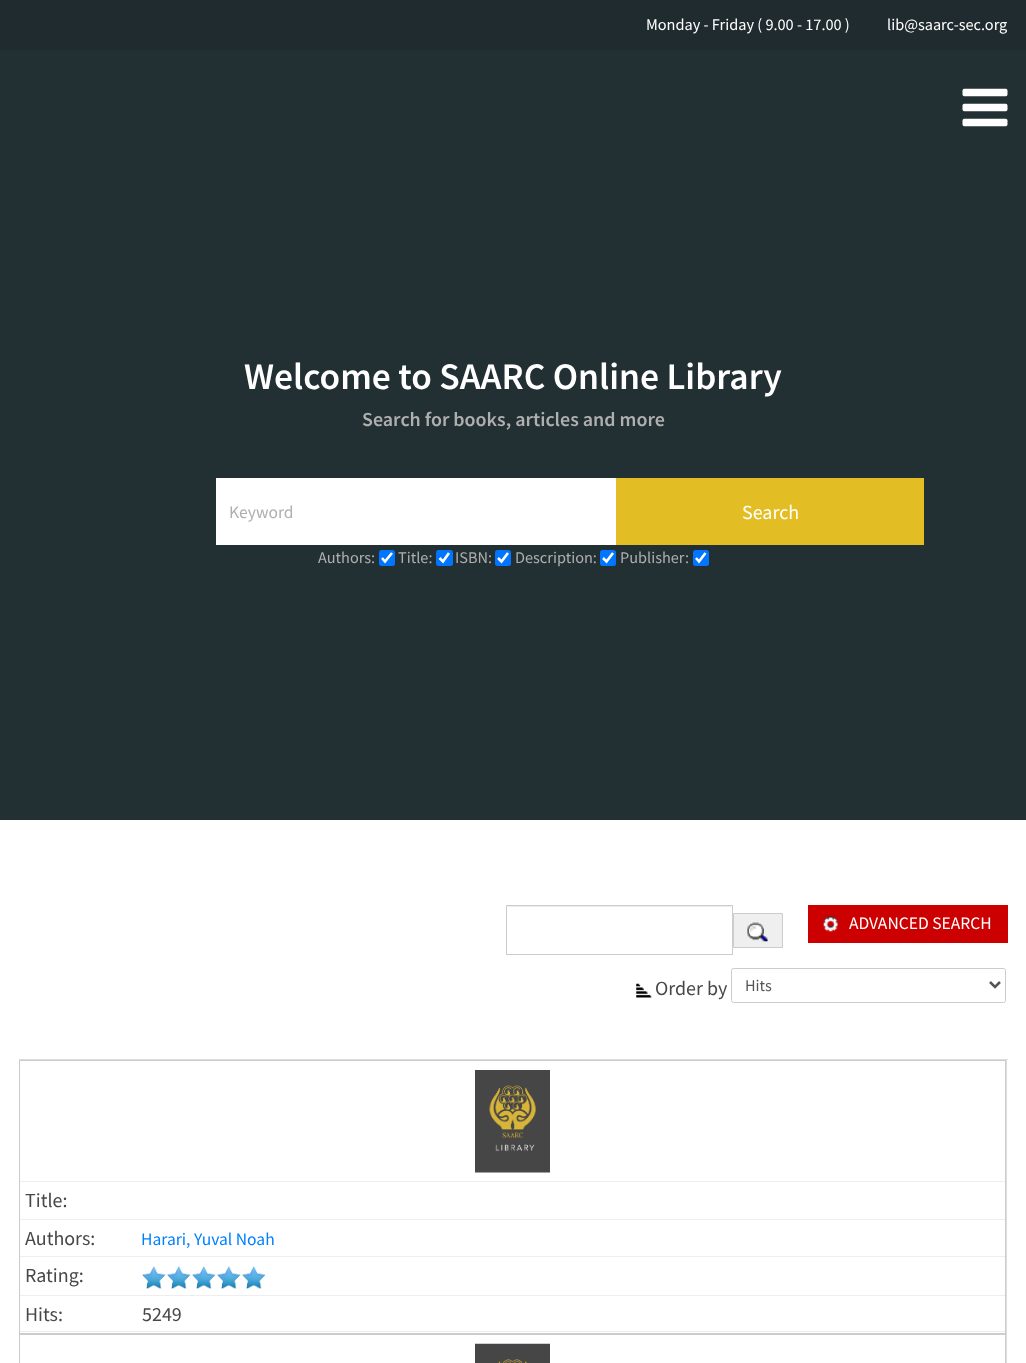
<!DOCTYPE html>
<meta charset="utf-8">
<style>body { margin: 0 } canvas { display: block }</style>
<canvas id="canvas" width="1026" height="1363"></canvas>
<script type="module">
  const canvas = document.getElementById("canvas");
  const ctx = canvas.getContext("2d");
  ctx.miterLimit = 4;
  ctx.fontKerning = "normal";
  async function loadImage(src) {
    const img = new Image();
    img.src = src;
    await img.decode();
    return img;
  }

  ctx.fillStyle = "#ffffff";
  ctx.fillRect(0, 0, 1026, 1363);
  ctx.fillStyle = "#1f2b2f";
  ctx.fillRect(0, 0, 1026, 50);
  ctx.font = "16.25px Source Sans Pro";
  ctx.fillStyle = "#ffffff";
  ctx.fillText("Monday - Friday ( 9.00 - 17.00 )", 646, 30);
  ctx.fillText("lib@saarc-sec.org", 887, 30);
  ctx.fillStyle = "#222f33";
  ctx.fillRect(0, 50, 1026, 770);
  ctx.drawImage(await loadImage("img1.png"), 962, 88, 46, 39);
  ctx.font = "600 37.5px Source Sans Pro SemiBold";
  ctx.fillStyle = "#ffffff";
  ctx.fillText("Welcome to SAARC Online Library", 244, 389);
  ctx.font = "600 20px Source Sans Pro SemiBold";
  ctx.fillStyle = "#afafaf";
  ctx.fillText("Search for books, articles and more", 362, 426);
  ctx.fillStyle = "#ffffff";
  ctx.fillRect(216, 478, 400, 67);
  ctx.font = "17.5px Source Sans Pro";
  ctx.fillStyle = "#afafaf";
  ctx.fillText("Keyword", 229, 518);
  ctx.fillStyle = "#e3bd24";
  ctx.fillRect(616, 478, 308, 67);
  ctx.font = "20px Source Sans Pro";
  ctx.fillStyle = "#ffffff";
  ctx.fillText("Search", 742, 519);
  ctx.font = "16.25px Source Sans Pro";
  ctx.fillStyle = "#afafaf";
  ctx.fillText("Authors:", 318, 563);
  ctx.fillStyle = "#0075ff";
  ctx.beginPath();
  ctx.roundRect(379, 550, 16, 16, 2.5);
  ctx.fill();
  ctx.beginPath();
  ctx.moveTo(382, 558);
  ctx.lineTo(385, 561.5);
  ctx.lineTo(392, 553);
  ctx.strokeStyle = "#ffffff";
  ctx.lineWidth = 2.6;
  ctx.stroke();
  ctx.fillStyle = "#afafaf";
  ctx.fillText("Title:", 398, 563);
  ctx.fillStyle = "#0075ff";
  ctx.beginPath();
  ctx.roundRect(436, 550, 17, 16, 2.5);
  ctx.fill();
  ctx.beginPath();
  ctx.moveTo(439.5, 558);
  ctx.lineTo(443, 561.5);
  ctx.lineTo(449, 553);
  ctx.stroke();
  ctx.fillStyle = "#afafaf";
  ctx.fillText("ISBN:", 455, 563);
  ctx.fillStyle = "#0075ff";
  ctx.beginPath();
  ctx.roundRect(495, 550, 16, 16, 2.5);
  ctx.fill();
  ctx.beginPath();
  ctx.moveTo(498, 558);
  ctx.lineTo(501.5, 561.5);
  ctx.lineTo(508, 553);
  ctx.stroke();
  ctx.fillStyle = "#afafaf";
  ctx.fillText("Description:", 515, 563);
  ctx.fillStyle = "#0075ff";
  ctx.beginPath();
  ctx.roundRect(600, 550, 16, 16, 2.5);
  ctx.fill();
  ctx.beginPath();
  ctx.moveTo(603, 558);
  ctx.lineTo(606.5, 561.5);
  ctx.lineTo(613, 553);
  ctx.stroke();
  ctx.fillStyle = "#afafaf";
  ctx.fillText("Publisher:", 620, 563);
  ctx.fillStyle = "#0075ff";
  ctx.beginPath();
  ctx.roundRect(693, 550, 16, 16, 2.5);
  ctx.fill();
  ctx.beginPath();
  ctx.moveTo(696, 558);
  ctx.lineTo(699, 561.5);
  ctx.lineTo(705.5, 553);
  ctx.stroke();
  ctx.fillStyle = "#ececec";
  ctx.fillRect(508, 906, 223, 1);
  ctx.strokeStyle = "#cccccc";
  ctx.lineWidth = 1;
  ctx.strokeRect(506.5, 905.5, 226, 49);
  ctx.fillStyle = "#efefef";
  ctx.beginPath();
  ctx.rect(733.5, 913.5, 49, 34);
  ctx.fill();
  ctx.stroke();
  ctx.drawImage(await loadImage("img2.png"), 747, 922, 21, 20);
  ctx.fillStyle = "#cc0000";
  ctx.fillRect(808, 905, 200, 38);
  ctx.drawImage(await loadImage("img3.png"), 823, 916, 15, 16);
  ctx.font = "17.5px Source Sans Pro";
  ctx.fillStyle = "#ffffff";
  ctx.fillText("ADVANCED SEARCH", 849, 929);
  ctx.drawImage(await loadImage("img4.png"), 636, 983, 16, 15);
  ctx.font = "20px Source Sans Pro";
  ctx.fillStyle = "#474747";
  ctx.fillText("Order by", 655, 995);
  ctx.beginPath();
  ctx.roundRect(731.5, 968.5, 274, 34, 2);
  ctx.stroke();
  ctx.beginPath();
  ctx.moveTo(990, 982);
  ctx.lineTo(995, 987);
  ctx.lineTo(1000, 982);
  ctx.strokeStyle = "#555555";
  ctx.lineWidth = 2.5;
  ctx.stroke();
  ctx.font = "16.25px Source Sans Pro";
  ctx.fillStyle = "#555555";
  ctx.fillText("Hits", 745, 991);
  ctx.fillStyle = "#dddddd";
  ctx.fillRect(19, 1059, 989, 1);
  ctx.fillRect(1006, 1059, 1, 304);
  ctx.strokeStyle = "#cccccc";
  ctx.lineWidth = 1;
  ctx.strokeRect(19.5, 1060.5, 986, 273);
  ctx.fillStyle = "#eeeeee";
  ctx.fillRect(20, 1181, 985, 1);
  ctx.drawImage(await loadImage("img5.png"), 475, 1070, 75, 103);
  ctx.fillRect(20, 1219, 985, 1);
  ctx.font = "20px Source Sans Pro";
  ctx.fillStyle = "#474747";
  ctx.fillText("Title:", 25, 1207);
  ctx.fillStyle = "#eeeeee";
  ctx.fillRect(20, 1256, 985, 1);
  ctx.fillStyle = "#474747";
  ctx.fillText("Authors:", 25, 1245);
  ctx.font = "17.5px Source Sans Pro";
  ctx.fillStyle = "#0080ff";
  ctx.fillText("Harari, Yuval Noah", 141, 1245);
  ctx.fillStyle = "#eeeeee";
  ctx.fillRect(20, 1295, 985, 1);
  ctx.font = "20px Source Sans Pro";
  ctx.fillStyle = "#474747";
  ctx.fillText("Rating:", 25, 1282);
  ctx.drawImage(await loadImage("img6.png"), 142, 1266, 124, 23);
  ctx.fillStyle = "#eeeeee";
  ctx.fillRect(20, 1331, 985, 1);
  ctx.fillStyle = "#474747";
  ctx.fillText("Hits:", 25, 1321);
  ctx.fillText("5249", 142, 1321);
  ctx.strokeRect(19.5, 1334.5, 986, 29);
  ctx.drawImage(await loadImage("img7.png"), 475, 1343, 75, 20);
</script>
